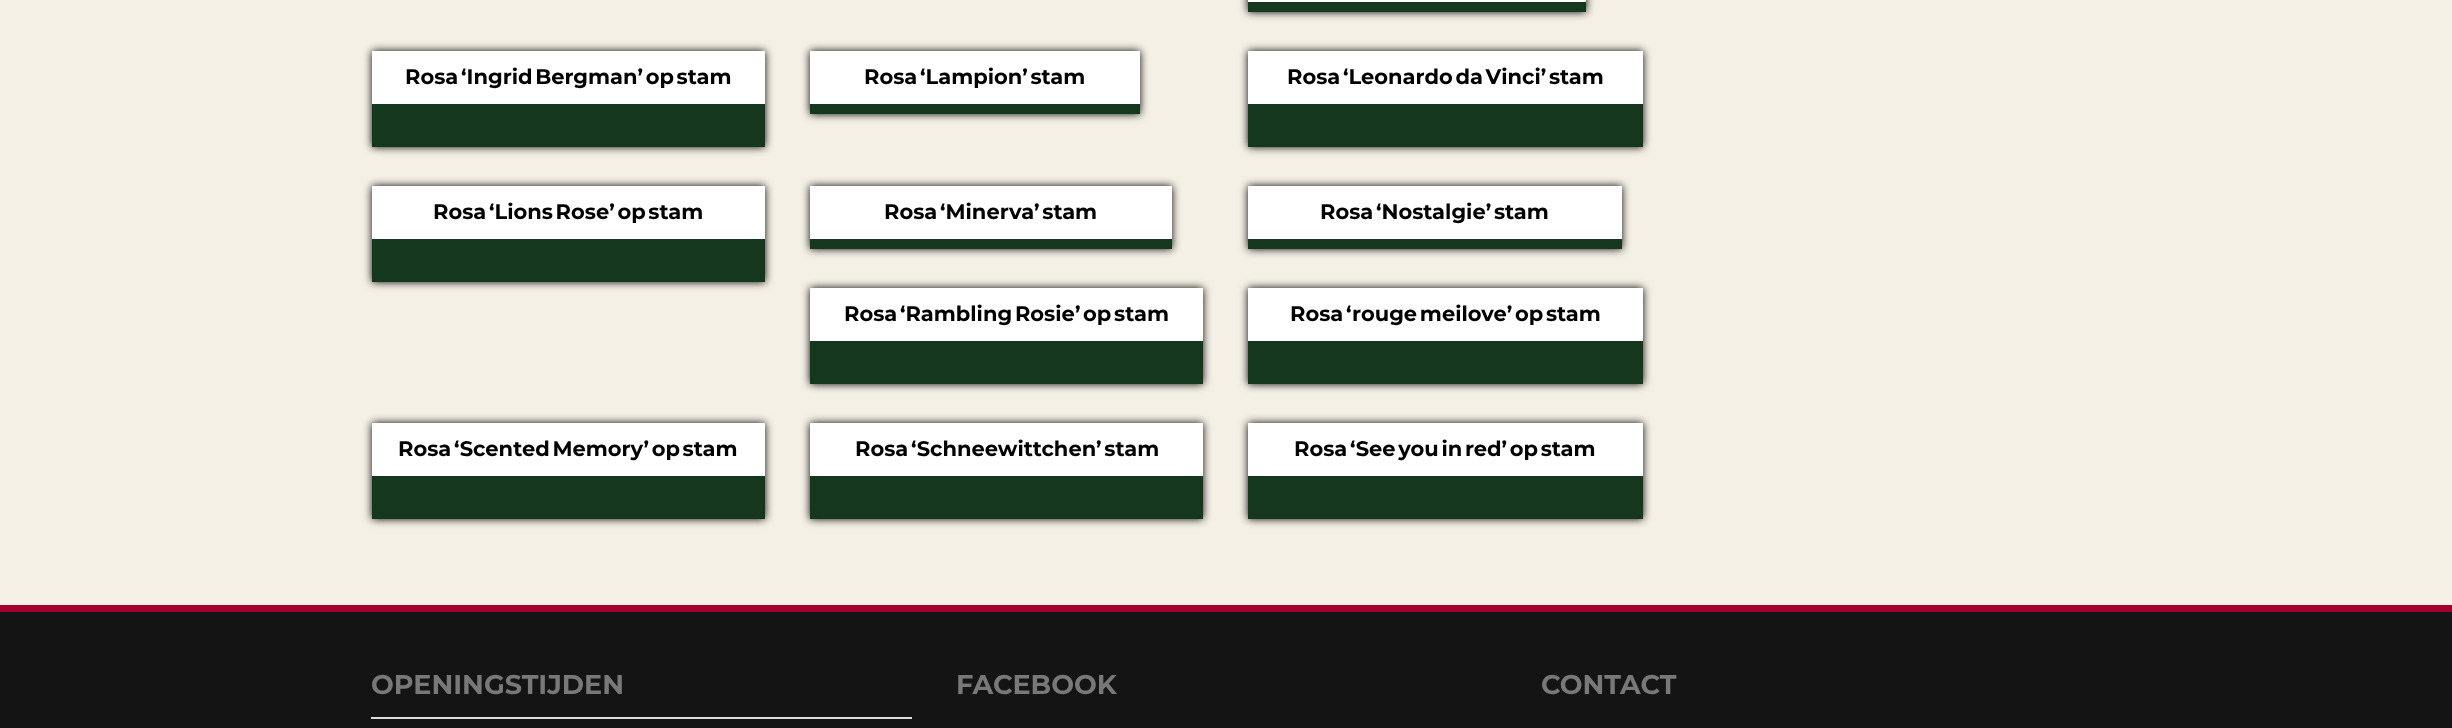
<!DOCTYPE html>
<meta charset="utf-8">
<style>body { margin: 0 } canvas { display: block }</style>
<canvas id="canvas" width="2452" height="728"></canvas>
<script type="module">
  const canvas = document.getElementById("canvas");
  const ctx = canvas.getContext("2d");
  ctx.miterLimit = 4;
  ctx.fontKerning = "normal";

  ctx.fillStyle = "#f5f0e6";
  ctx.fillRect(0, 0, 2452, 728);
  ctx.fillStyle = "#000000";
  ctx.filter = "blur(4px)";
  ctx.beginPath();
  ctx.rect(1248, -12, 338, 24);
  ctx.fill();
  ctx.filter = "none";
  ctx.fillStyle = "#14371e";
  ctx.fillRect(1248, 2, 338, 10);
  ctx.fillStyle = "#ffffff";
  ctx.fillRect(1248, 0, 338, 2);
  ctx.fillStyle = "#000000";
  ctx.filter = "blur(4px)";
  ctx.beginPath();
  ctx.rect(372, 51, 393, 96);
  ctx.fill();
  ctx.filter = "none";
  ctx.fillStyle = "#14371e";
  ctx.fillRect(372, 104, 393, 43);
  ctx.fillStyle = "#ffffff";
  ctx.fillRect(372, 51, 393, 53);
  ctx.wordSpacing = "-3.25px";
  ctx.font = "bold 21px Montserrat";
  ctx.fillStyle = "#000000";
  ctx.fillText("Rosa ‘Ingrid Bergman’ op stam", 405, 84);
  ctx.filter = "blur(4px)";
  ctx.beginPath();
  ctx.rect(810, 51, 330, 63);
  ctx.fill();
  ctx.filter = "none";
  ctx.fillStyle = "#14371e";
  ctx.fillRect(810, 104, 330, 10);
  ctx.fillStyle = "#ffffff";
  ctx.fillRect(810, 51, 330, 53);
  ctx.fillStyle = "#000000";
  ctx.fillText("Rosa ‘Lampion’ stam", 864, 84);
  ctx.filter = "blur(4px)";
  ctx.beginPath();
  ctx.rect(1248, 51, 395, 96);
  ctx.fill();
  ctx.filter = "none";
  ctx.fillStyle = "#14371e";
  ctx.fillRect(1248, 104, 395, 43);
  ctx.fillStyle = "#ffffff";
  ctx.fillRect(1248, 51, 395, 53);
  ctx.fillStyle = "#000000";
  ctx.fillText("Rosa ‘Leonardo da Vinci’ stam", 1287, 84);
  ctx.filter = "blur(4px)";
  ctx.beginPath();
  ctx.rect(372, 186, 393, 96);
  ctx.fill();
  ctx.filter = "none";
  ctx.fillStyle = "#14371e";
  ctx.fillRect(372, 239, 393, 43);
  ctx.fillStyle = "#ffffff";
  ctx.fillRect(372, 186, 393, 53);
  ctx.fillStyle = "#000000";
  ctx.fillText("Rosa ‘Lions Rose’ op stam", 433, 219);
  ctx.filter = "blur(4px)";
  ctx.beginPath();
  ctx.rect(810, 186, 362, 63);
  ctx.fill();
  ctx.filter = "none";
  ctx.fillStyle = "#14371e";
  ctx.fillRect(810, 239, 362, 10);
  ctx.fillStyle = "#ffffff";
  ctx.fillRect(810, 186, 362, 53);
  ctx.fillStyle = "#000000";
  ctx.fillText("Rosa ‘Minerva’ stam", 884, 219);
  ctx.filter = "blur(4px)";
  ctx.beginPath();
  ctx.rect(1248, 186, 374, 63);
  ctx.fill();
  ctx.filter = "none";
  ctx.fillStyle = "#14371e";
  ctx.fillRect(1248, 239, 374, 10);
  ctx.fillStyle = "#ffffff";
  ctx.fillRect(1248, 186, 374, 53);
  ctx.fillStyle = "#000000";
  ctx.fillText("Rosa ‘Nostalgie’ stam", 1320, 219);
  ctx.filter = "blur(4px)";
  ctx.beginPath();
  ctx.rect(810, 288, 393, 96);
  ctx.fill();
  ctx.filter = "none";
  ctx.fillStyle = "#14371e";
  ctx.fillRect(810, 341, 393, 43);
  ctx.fillStyle = "#ffffff";
  ctx.fillRect(810, 288, 393, 53);
  ctx.fillStyle = "#000000";
  ctx.fillText("Rosa ‘Rambling Rosie’ op stam", 844, 321);
  ctx.filter = "blur(4px)";
  ctx.beginPath();
  ctx.rect(1248, 288, 395, 96);
  ctx.fill();
  ctx.filter = "none";
  ctx.fillStyle = "#14371e";
  ctx.fillRect(1248, 341, 395, 43);
  ctx.fillStyle = "#ffffff";
  ctx.fillRect(1248, 288, 395, 53);
  ctx.fillStyle = "#000000";
  ctx.fillText("Rosa ‘rouge meilove’ op stam", 1290, 321);
  ctx.filter = "blur(4px)";
  ctx.beginPath();
  ctx.rect(372, 423, 393, 96);
  ctx.fill();
  ctx.filter = "none";
  ctx.fillStyle = "#14371e";
  ctx.fillRect(372, 476, 393, 43);
  ctx.fillStyle = "#ffffff";
  ctx.fillRect(372, 423, 393, 53);
  ctx.fillStyle = "#000000";
  ctx.fillText("Rosa ‘Scented Memory’ op stam", 398, 456);
  ctx.filter = "blur(4px)";
  ctx.beginPath();
  ctx.rect(810, 423, 393, 96);
  ctx.fill();
  ctx.filter = "none";
  ctx.fillStyle = "#14371e";
  ctx.fillRect(810, 476, 393, 43);
  ctx.fillStyle = "#ffffff";
  ctx.fillRect(810, 423, 393, 53);
  ctx.fillStyle = "#000000";
  ctx.fillText("Rosa ‘Schneewittchen’ stam", 855, 456);
  ctx.filter = "blur(4px)";
  ctx.beginPath();
  ctx.rect(1248, 423, 395, 96);
  ctx.fill();
  ctx.filter = "none";
  ctx.fillStyle = "#14371e";
  ctx.fillRect(1248, 476, 395, 43);
  ctx.fillStyle = "#ffffff";
  ctx.fillRect(1248, 423, 395, 53);
  ctx.fillStyle = "#000000";
  ctx.fillText("Rosa ‘See you in red’ op stam", 1294, 456);
  ctx.fillStyle = "#141414";
  ctx.fillRect(0, 612, 2452, 116);
  ctx.fillStyle = "#a0002d";
  ctx.fillRect(0, 605, 2452, 7);
  ctx.wordSpacing = "0px";
  ctx.font = "bold 27px Montserrat";
  ctx.fillStyle = "#787878";
  ctx.fillText("OPENINGSTIJDEN", 371, 694);
  ctx.fillStyle = "#dddddd";
  ctx.fillRect(371, 717, 541, 2);
  ctx.fillStyle = "#787878";
  ctx.fillText("FACEBOOK", 956, 694);
  ctx.fillText("CONTACT", 1541, 694);
</script>
